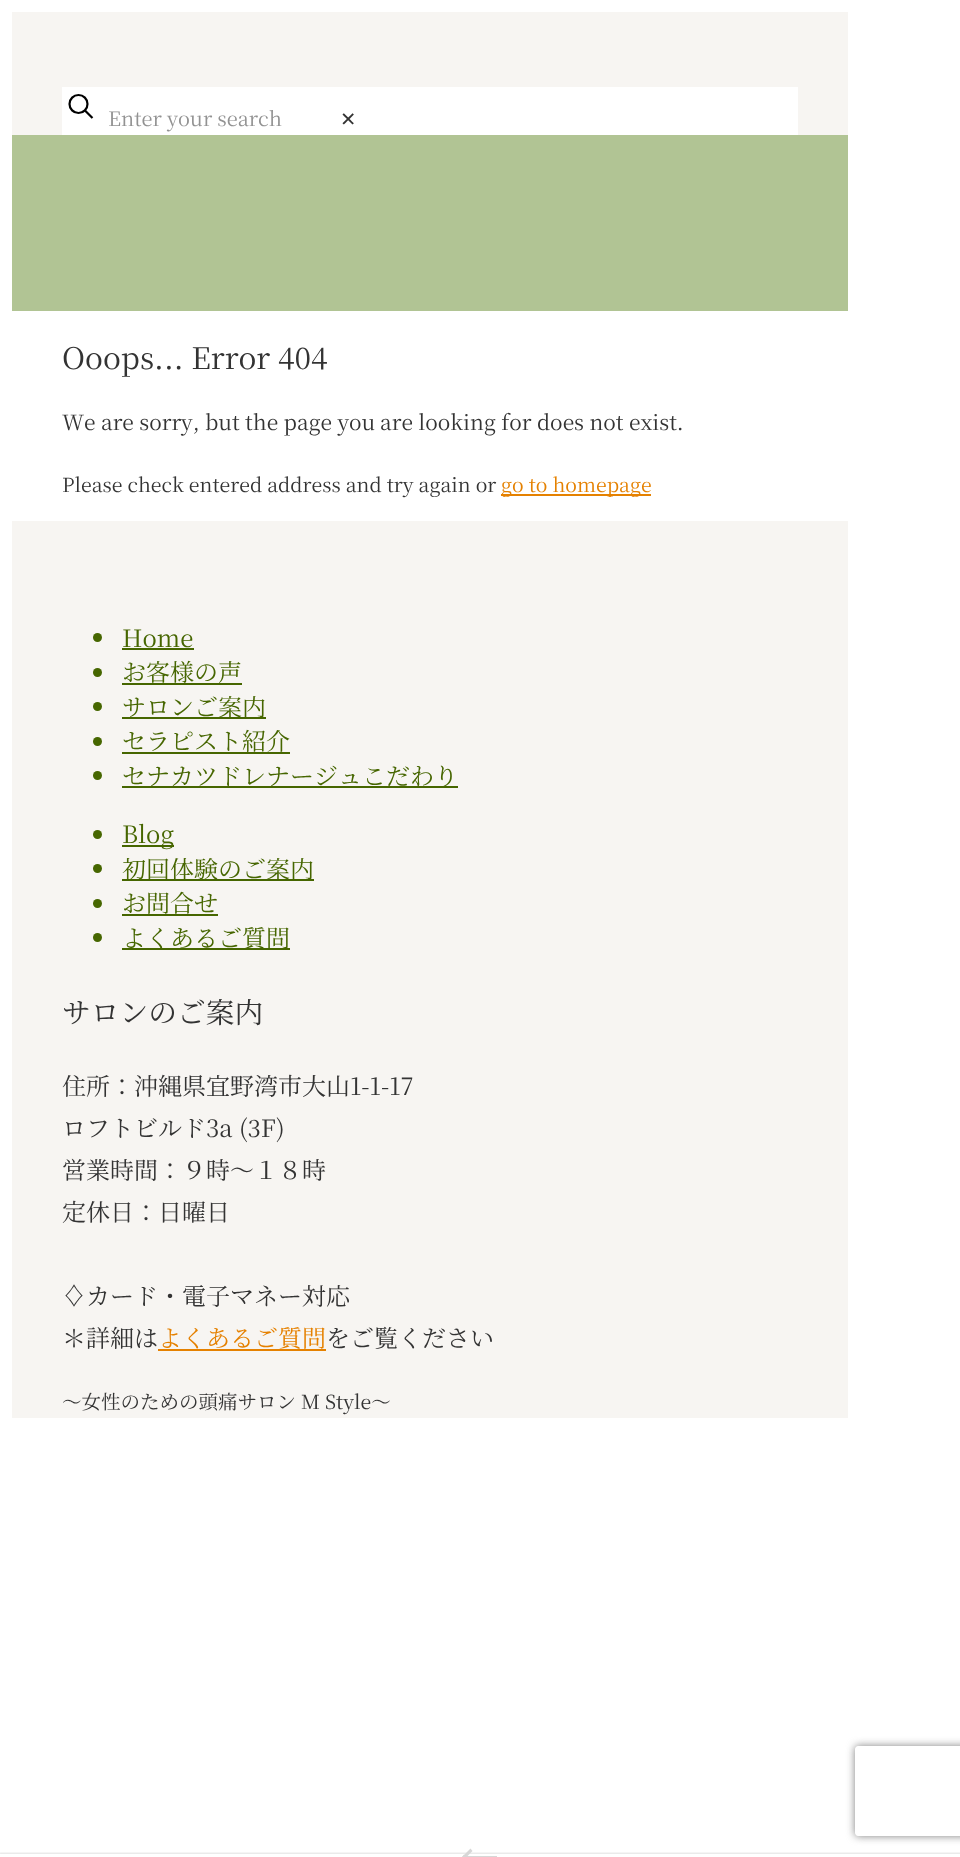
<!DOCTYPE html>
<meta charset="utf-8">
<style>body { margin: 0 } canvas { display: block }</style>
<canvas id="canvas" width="960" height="1857"></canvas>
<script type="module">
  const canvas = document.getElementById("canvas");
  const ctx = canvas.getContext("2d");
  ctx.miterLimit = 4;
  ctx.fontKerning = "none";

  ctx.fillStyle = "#ffffff";
  ctx.fillRect(0, 0, 960, 1857);
  ctx.fillStyle = "#f7f5f2";
  ctx.fillRect(12, 12, 836, 123);
  ctx.fillStyle = "#ffffff";
  ctx.fillRect(62, 87, 736, 48);
  ctx.beginPath();
  ctx.arc(78.5, 104, 9, 0, Math.PI * 2);
  ctx.strokeStyle = "#000000";
  ctx.lineWidth = 2.2;
  ctx.stroke();
  ctx.beginPath();
  ctx.moveTo(85, 110.5);
  ctx.lineTo(92.5, 118);
  ctx.stroke();
  ctx.font = "20px Noto Serif JP";
  ctx.fillStyle = "#929292";
  ctx.fillText("Enter your search", 108, 126);
  ctx.font = "19.5px DejaVu Sans";
  ctx.fillStyle = "#333333";
  ctx.fillText("✕", 340, 126);
  ctx.fillStyle = "#b1c494";
  ctx.fillRect(12, 135, 836, 176);
  ctx.font = "30px Noto Serif JP";
  ctx.fillStyle = "#333333";
  ctx.fillText("Ooops... Error 404", 62, 369);
  ctx.font = "21px Noto Serif JP";
  ctx.fillText("We are sorry, but the page you", 62, 430);
  ctx.fillText("are looking for does not exist.", 380, 430);
  ctx.font = "19.5px Noto Serif JP";
  ctx.fillText("Please check entered address and try again or", 62, 492);
  ctx.fillStyle = "#e58100";
  ctx.fillRect(501, 494, 150, 2);
  ctx.fillText("go to homepage", 501, 492);
  ctx.fillStyle = "#f7f5f2";
  ctx.fillRect(12, 521, 836, 897);
  ctx.fillStyle = "#466600";
  ctx.beginPath();
  ctx.arc(97.5, 637.5, 4.5, 0, Math.PI * 2);
  ctx.fill();
  ctx.font = "24px Noto Serif JP";
  ctx.fillText("Home", 122, 647);
  ctx.fillRect(122, 648, 72, 2);
  ctx.beginPath();
  ctx.arc(97.5, 672.5, 4.5, 0, Math.PI * 2);
  ctx.fill();
  ctx.fillText("お客様の声", 122, 681);
  ctx.fillRect(122, 683, 120, 2);
  ctx.beginPath();
  ctx.arc(97.5, 706.5, 4.5, 0, Math.PI * 2);
  ctx.fill();
  ctx.fillRect(122, 717, 144, 2);
  ctx.fillText("サロンご案内", 122, 716);
  ctx.beginPath();
  ctx.arc(97.5, 741.5, 4.5, 0, Math.PI * 2);
  ctx.fill();
  ctx.fillText("セラピスト紹介", 122, 750);
  ctx.fillRect(122, 752, 168, 2);
  ctx.beginPath();
  ctx.arc(97.5, 775.5, 4.5, 0, Math.PI * 2);
  ctx.fill();
  ctx.fillRect(122, 786, 336, 2);
  ctx.fillText("セナカツドレナージュこだわり", 122, 785);
  ctx.beginPath();
  ctx.arc(97.5, 834.5, 4.5, 0, Math.PI * 2);
  ctx.fill();
  ctx.fillRect(122, 845, 52, 2);
  ctx.fillText("Blog", 122, 843);
  ctx.beginPath();
  ctx.arc(97.5, 868.5, 4.5, 0, Math.PI * 2);
  ctx.fill();
  ctx.fillRect(122, 879, 192, 2);
  ctx.fillText("初回体験のご案内", 122, 878);
  ctx.beginPath();
  ctx.arc(97.5, 903.5, 4.5, 0, Math.PI * 2);
  ctx.fill();
  ctx.fillText("お問合せ", 122, 912);
  ctx.fillRect(122, 914, 96, 2);
  ctx.beginPath();
  ctx.arc(97.5, 937.5, 4.5, 0, Math.PI * 2);
  ctx.fill();
  ctx.fillRect(122, 948, 168, 2);
  ctx.fillText("よくあるご質問", 122, 947);
  ctx.font = "28.75px Noto Serif JP";
  ctx.fillStyle = "#333333";
  ctx.fillText("サロンのご案内", 62, 1023);
  ctx.font = "24px Noto Serif JP";
  ctx.fillText("住所：沖縄県宜野湾市大山1-1-17", 62, 1095);
  ctx.fillText("ロフトビルド3a (3F)", 62, 1137);
  ctx.fillText("営業時間：９時〜１８時", 62, 1179);
  ctx.fillText("定休日：日曜日", 62, 1221);
  ctx.fillText("♢カード・電子マネー対応", 62, 1305);
  ctx.fillText("＊詳細は", 62, 1347);
  ctx.fillStyle = "#e58100";
  ctx.fillText("よくあるご質問", 158, 1347);
  ctx.fillRect(158, 1349, 168, 2);
  ctx.fillStyle = "#333333";
  ctx.fillText("をご覧ください", 326, 1347);
  ctx.font = "19.5px Noto Serif JP";
  ctx.fillText("〜女性のための頭痛サロン M Style〜", 62, 1409);
  ctx.save();
  ctx.beginPath();
  ctx.moveTo(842, 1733);
  ctx.lineTo(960, 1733);
  ctx.lineTo(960, 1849);
  ctx.lineTo(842, 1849);
  ctx.closePath();
  ctx.moveTo(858, 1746);
  ctx.lineTo(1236, 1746);
  ctx.bezierCurveTo(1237.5, 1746, 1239, 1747.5, 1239, 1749);
  ctx.lineTo(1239, 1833);
  ctx.bezierCurveTo(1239, 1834.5, 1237.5, 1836, 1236, 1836);
  ctx.lineTo(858, 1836);
  ctx.bezierCurveTo(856.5, 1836, 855, 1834.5, 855, 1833);
  ctx.lineTo(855, 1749);
  ctx.bezierCurveTo(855, 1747.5, 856.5, 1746, 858, 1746);
  ctx.closePath();
  ctx.clip("evenodd");
  ctx.fillStyle = "#808080";
  ctx.filter = "blur(4px)";
  ctx.beginPath();
  ctx.roundRect(855, 1746, 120, 90, 3);
  ctx.fill();
  ctx.filter = "none";
  ctx.restore();
  ctx.save();
  ctx.beginPath();
  ctx.rect(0, 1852, 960, 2);
  ctx.clip();
  ctx.fillStyle = "rgba(0, 0, 0, 0.12)";
  ctx.filter = "blur(1px)";
  ctx.beginPath();
  ctx.rect(-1, 1853, 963, 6);
  ctx.fill();
  ctx.filter = "none";
  ctx.restore();
  ctx.fillStyle = "#d7d7d7";
  ctx.fillRect(465, 1856, 32, 1);
  ctx.beginPath();
  ctx.moveTo(462, 1857);
  ctx.lineTo(470.5, 1848.5);
  ctx.lineTo(472.5, 1851);
  ctx.lineTo(464, 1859.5);
  ctx.closePath();
  ctx.fill();
  ctx.beginPath();
  ctx.moveTo(464, 1854.5);
  ctx.lineTo(472.5, 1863);
  ctx.lineTo(470.5, 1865.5);
  ctx.lineTo(462, 1857);
  ctx.closePath();
  ctx.fill();
</script>
